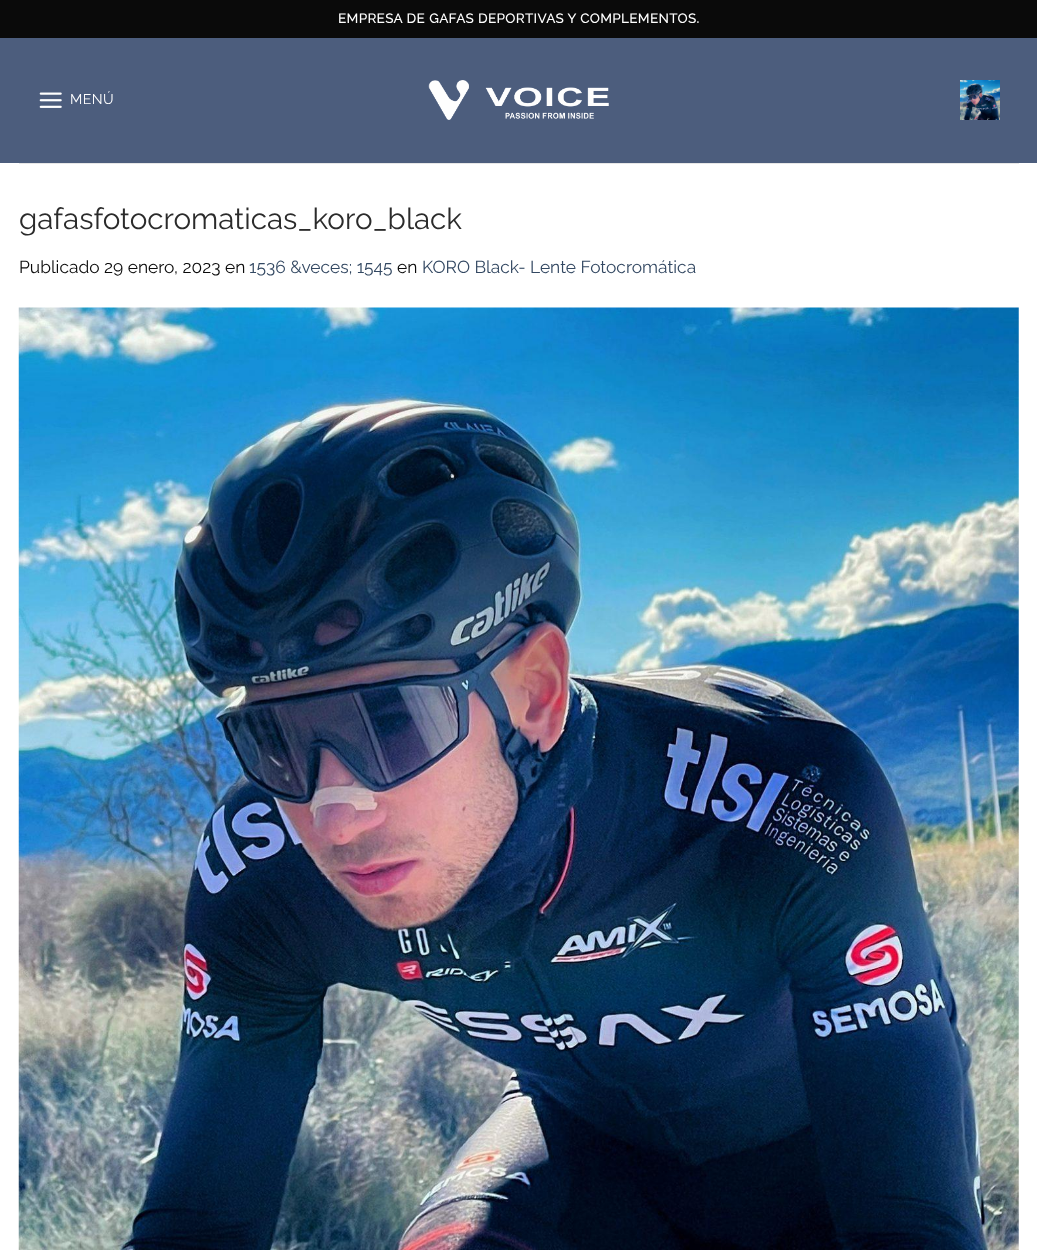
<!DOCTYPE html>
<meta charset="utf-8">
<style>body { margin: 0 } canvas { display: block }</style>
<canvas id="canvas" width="1037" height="1250"></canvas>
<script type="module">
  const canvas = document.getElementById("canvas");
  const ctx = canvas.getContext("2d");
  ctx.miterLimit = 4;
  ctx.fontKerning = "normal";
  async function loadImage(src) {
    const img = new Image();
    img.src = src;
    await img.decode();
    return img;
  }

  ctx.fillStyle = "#ffffff";
  ctx.fillRect(0, 0, 1037, 1250);
  ctx.fillStyle = "#0a0a0a";
  ctx.fillRect(0, 0, 1037, 38);
  ctx.letterSpacing = "0.65px";
  ctx.font = "bold 13.05px Raleway";
  ctx.fillStyle = "#ffffff";
  ctx.fillText("EMPRESA DE GAFAS DEPORTIVAS Y COMPLEMENTOS.", 338, 23);
  ctx.fillStyle = "#4c5d7d";
  ctx.fillRect(0, 38, 1037, 125);
  ctx.drawImage(await loadImage("img1.png"), 39, 92, 23, 16);
  ctx.letterSpacing = "0.5px";
  ctx.font = "100 14px Raleway";
  ctx.fillStyle = "#ffffff";
  ctx.fillText("MENÚ", 70, 104);
  ctx.drawImage(await loadImage("img2.png"), 428, 80, 181, 40);
  ctx.drawImage(await loadImage("img3.png"), 960, 80, 40, 40);
  ctx.fillStyle = "#e7e7e7";
  ctx.fillRect(19, 163, 1000, 1);
  ctx.letterSpacing = "0px";
  ctx.font = "100 29.6px Raleway";
  ctx.fillStyle = "#2b2b2b";
  ctx.fillText("gafasfotocromaticas_koro_black", 19, 229);
  ctx.font = "100 17.4px Raleway";
  ctx.fillStyle = "#0a0a0a";
  ctx.fillText("Publicado 29 enero, 2023 en", 19, 273);
  ctx.fillStyle = "#334862";
  ctx.fillText("1536 &veces; 1545", 249, 273);
  ctx.fillStyle = "#0a0a0a";
  ctx.fillText("en", 397, 273);
  ctx.fillStyle = "#334862";
  ctx.fillText("KORO Black- Lente Fotocromática", 422, 273);
  ctx.drawImage(await loadImage("img4.png"), 18, 307, 1001, 943);
</script>
